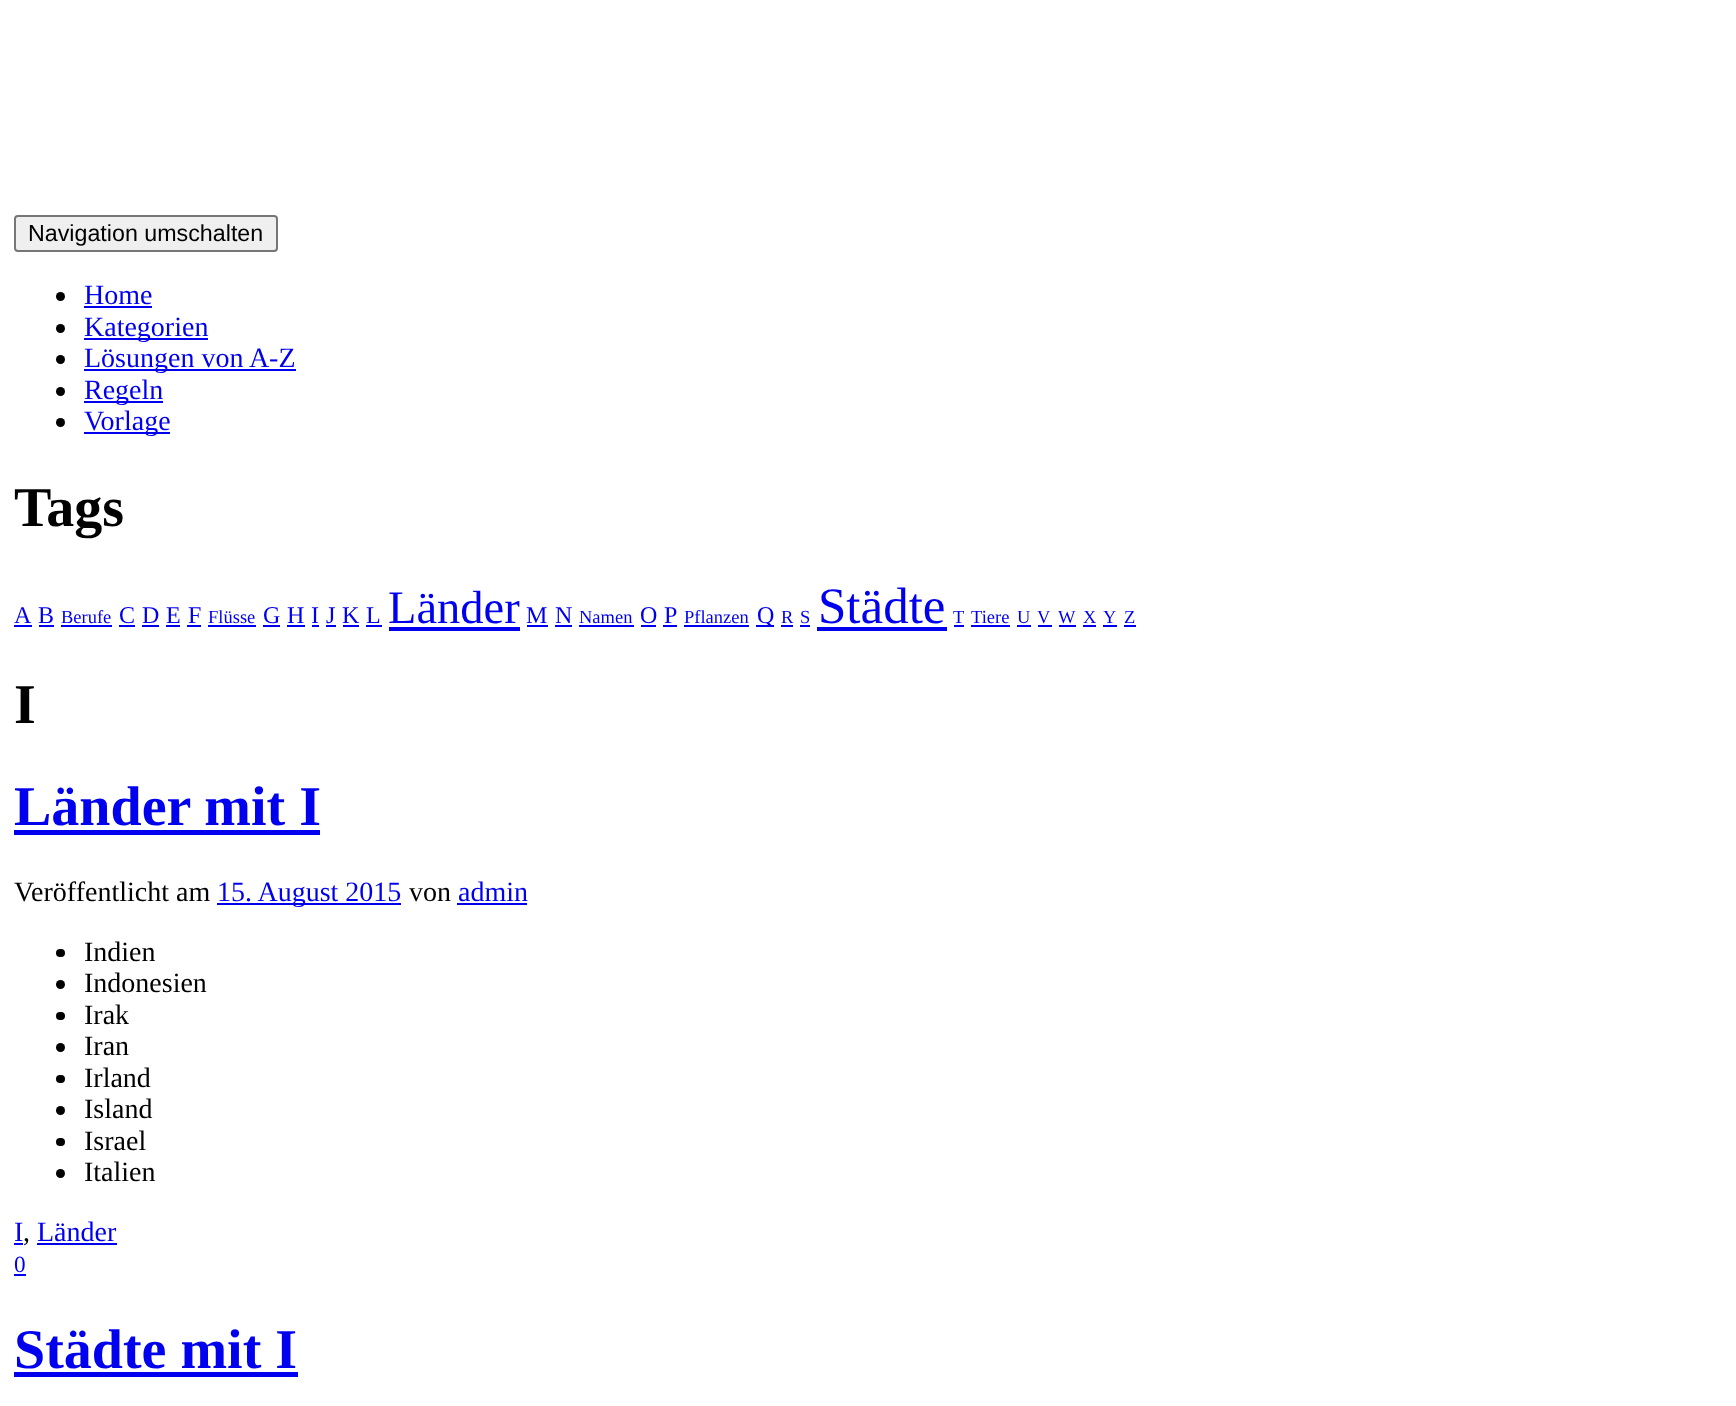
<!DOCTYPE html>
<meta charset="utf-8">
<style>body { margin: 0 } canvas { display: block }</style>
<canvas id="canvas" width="1736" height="1406"></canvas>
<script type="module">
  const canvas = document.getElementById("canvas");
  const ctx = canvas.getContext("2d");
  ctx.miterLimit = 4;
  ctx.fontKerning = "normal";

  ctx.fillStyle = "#ffffff";
  ctx.fillRect(0, 0, 1736, 1406);
  ctx.fillStyle = "#efefef";
  ctx.beginPath();
  ctx.roundRect(15, 216, 262, 35, 3);
  ctx.fill();
  ctx.strokeStyle = "#767676";
  ctx.lineWidth = 2;
  ctx.stroke();
  ctx.font = "23.25px Liberation Sans";
  ctx.fillStyle = "#000000";
  ctx.fillText("Navigation umschalten", 28, 241);
  ctx.beginPath();
  ctx.arc(60.5, 296.5, 4.5, 0, Math.PI * 2);
  ctx.fill();
  ctx.font = "28px Liberation Serif";
  ctx.fillStyle = "#0000ee";
  ctx.fillText("Home", 84, 304);
  ctx.fillRect(84, 306, 68, 2);
  ctx.fillStyle = "#000000";
  ctx.beginPath();
  ctx.arc(60.5, 328.5, 4.5, 0, Math.PI * 2);
  ctx.fill();
  ctx.fillStyle = "#0000ee";
  ctx.fillRect(84, 338, 124, 2);
  ctx.fillText("Kategorien", 84, 336);
  ctx.fillStyle = "#000000";
  ctx.beginPath();
  ctx.arc(60.5, 359.5, 4.5, 0, Math.PI * 2);
  ctx.fill();
  ctx.fillStyle = "#0000ee";
  ctx.fillRect(84, 369, 212, 2);
  ctx.fillText("Lösungen von A-Z", 84, 367);
  ctx.fillStyle = "#000000";
  ctx.beginPath();
  ctx.arc(60.5, 391.5, 4.5, 0, Math.PI * 2);
  ctx.fill();
  ctx.fillStyle = "#0000ee";
  ctx.fillRect(84, 401, 79, 2);
  ctx.fillText("Regeln", 84, 399);
  ctx.fillStyle = "#000000";
  ctx.beginPath();
  ctx.arc(60.5, 422.5, 4.5, 0, Math.PI * 2);
  ctx.fill();
  ctx.fillStyle = "#0000ee";
  ctx.fillRect(84, 432, 86, 2);
  ctx.fillText("Vorlage", 84, 430);
  ctx.font = "bold 56px Liberation Serif";
  ctx.fillStyle = "#000000";
  ctx.fillText("Tags", 14, 526);
  ctx.font = "24px Liberation Serif";
  ctx.fillStyle = "#0000ee";
  ctx.fillText("A", 14, 623);
  ctx.fillRect(14, 625, 18, 2);
  ctx.fillText("B", 38, 623);
  ctx.fillRect(39, 625, 15, 2);
  ctx.font = "18.5px Liberation Serif";
  ctx.fillText("Berufe", 61, 623);
  ctx.fillRect(61, 625, 51, 2);
  ctx.font = "24px Liberation Serif";
  ctx.fillText("C", 119, 623);
  ctx.fillRect(119, 625, 16, 2);
  ctx.fillText("D", 142, 623);
  ctx.fillRect(142, 625, 17, 2);
  ctx.fillText("E", 166, 623);
  ctx.fillRect(166, 625, 14, 2);
  ctx.fillText("F", 188, 623);
  ctx.fillRect(187, 625, 14, 2);
  ctx.font = "18.5px Liberation Serif";
  ctx.fillText("Flüsse", 208, 623);
  ctx.fillRect(208, 625, 48, 2);
  ctx.font = "24px Liberation Serif";
  ctx.fillText("G", 263, 623);
  ctx.fillRect(263, 625, 17, 2);
  ctx.fillText("H", 287, 623);
  ctx.fillRect(287, 625, 18, 2);
  ctx.fillText("I", 311, 623);
  ctx.fillRect(312, 625, 7, 2);
  ctx.fillText("J", 326, 623);
  ctx.fillRect(326, 625, 10, 2);
  ctx.fillText("K", 342, 623);
  ctx.fillRect(343, 625, 16, 2);
  ctx.fillText("L", 366, 623);
  ctx.fillRect(366, 625, 16, 2);
  ctx.font = "46.5px Liberation Serif";
  ctx.fillText("Länder", 388, 623);
  ctx.fillRect(389, 627, 131, 4);
  ctx.font = "24px Liberation Serif";
  ctx.fillText("M", 526, 623);
  ctx.fillRect(527, 625, 21, 2);
  ctx.fillText("N", 555, 623);
  ctx.fillRect(555, 625, 17, 2);
  ctx.font = "18.5px Liberation Serif";
  ctx.fillText("Namen", 579, 623);
  ctx.fillRect(579, 625, 55, 2);
  ctx.font = "24px Liberation Serif";
  ctx.fillText("O", 640, 623);
  ctx.fillRect(641, 625, 15, 2);
  ctx.fillText("P", 664, 623);
  ctx.fillRect(663, 625, 14, 2);
  ctx.font = "18.5px Liberation Serif";
  ctx.fillText("Pflanzen", 684, 623);
  ctx.fillRect(684, 625, 65, 2);
  ctx.fillRect(756, 625, 18, 2);
  ctx.font = "24px Liberation Serif";
  ctx.fillText("Q", 757, 623);
  ctx.font = "18.5px Liberation Serif";
  ctx.fillText("R", 781, 623);
  ctx.fillRect(781, 625, 12, 2);
  ctx.fillText("S", 800, 623);
  ctx.fillRect(800, 625, 10, 2);
  ctx.font = "51px Liberation Serif";
  ctx.fillText("Städte", 818, 623);
  ctx.fillRect(817, 627, 130, 4);
  ctx.font = "18.5px Liberation Serif";
  ctx.fillText("T", 953, 623);
  ctx.fillRect(954, 625, 10, 2);
  ctx.fillText("Tiere", 971, 623);
  ctx.fillRect(971, 625, 39, 2);
  ctx.fillText("U", 1017, 623);
  ctx.fillRect(1017, 625, 14, 2);
  ctx.fillText("V", 1037, 623);
  ctx.fillRect(1038, 625, 14, 2);
  ctx.fillText("W", 1058, 623);
  ctx.fillRect(1059, 625, 17, 2);
  ctx.fillText("X", 1083, 623);
  ctx.fillRect(1083, 625, 13, 2);
  ctx.fillText("Y", 1103, 623);
  ctx.fillRect(1103, 625, 14, 2);
  ctx.fillText("Z", 1124, 623);
  ctx.fillRect(1124, 625, 12, 2);
  ctx.font = "bold 56px Liberation Serif";
  ctx.fillStyle = "#000000";
  ctx.fillText("I", 14, 723);
  ctx.fillStyle = "#0000ee";
  ctx.fillText("Länder mit I", 14, 825);
  ctx.fillRect(14, 830, 306, 5);
  ctx.font = "28px Liberation Serif";
  ctx.fillStyle = "#000000";
  ctx.fillText("Veröffentlicht am", 14, 901);
  ctx.fillStyle = "#0000ee";
  ctx.fillRect(217, 903, 184, 2);
  ctx.fillText("15. August 2015", 217, 901);
  ctx.fillStyle = "#000000";
  ctx.fillText("von", 409, 901);
  ctx.fillStyle = "#0000ee";
  ctx.fillRect(457, 903, 70, 2);
  ctx.fillText("admin", 458, 901);
  ctx.fillStyle = "#000000";
  ctx.beginPath();
  ctx.roundRect(56, 949, 9, 8, 4);
  ctx.fill();
  ctx.fillText("Indien", 84, 961);
  ctx.beginPath();
  ctx.arc(60.5, 984.5, 4.5, 0, Math.PI * 2);
  ctx.fill();
  ctx.fillText("Indonesien", 84, 992);
  ctx.beginPath();
  ctx.roundRect(56, 1012, 9, 8, 4);
  ctx.fill();
  ctx.fillText("Irak", 84, 1024);
  ctx.beginPath();
  ctx.arc(60.5, 1047.5, 4.5, 0, Math.PI * 2);
  ctx.fill();
  ctx.fillText("Iran", 84, 1055);
  ctx.beginPath();
  ctx.roundRect(56, 1075, 9, 8, 4);
  ctx.fill();
  ctx.fillText("Irland", 84, 1087);
  ctx.beginPath();
  ctx.arc(60.5, 1110.5, 4.5, 0, Math.PI * 2);
  ctx.fill();
  ctx.fillText("Island", 84, 1118);
  ctx.beginPath();
  ctx.roundRect(56, 1138, 9, 8, 4);
  ctx.fill();
  ctx.fillText("Israel", 84, 1150);
  ctx.beginPath();
  ctx.arc(60.5, 1173.5, 4.5, 0, Math.PI * 2);
  ctx.fill();
  ctx.fillText("Italien", 84, 1181);
  ctx.fillStyle = "#0000ee";
  ctx.fillText("I", 14, 1241);
  ctx.fillText("Länder", 37, 1241);
  ctx.fillStyle = "#000000";
  ctx.fillText(",", 23, 1241);
  ctx.fillStyle = "#0000ee";
  ctx.fillRect(14, 1243, 9, 2);
  ctx.fillRect(37, 1243, 80, 2);
  ctx.font = "23.25px Liberation Serif";
  ctx.fillText("0", 14, 1272);
  ctx.fillRect(14, 1274, 12, 2);
  ctx.font = "bold 56px Liberation Serif";
  ctx.fillText("Städte mit I", 14, 1368);
  ctx.fillRect(14, 1372, 284, 5);
</script>
